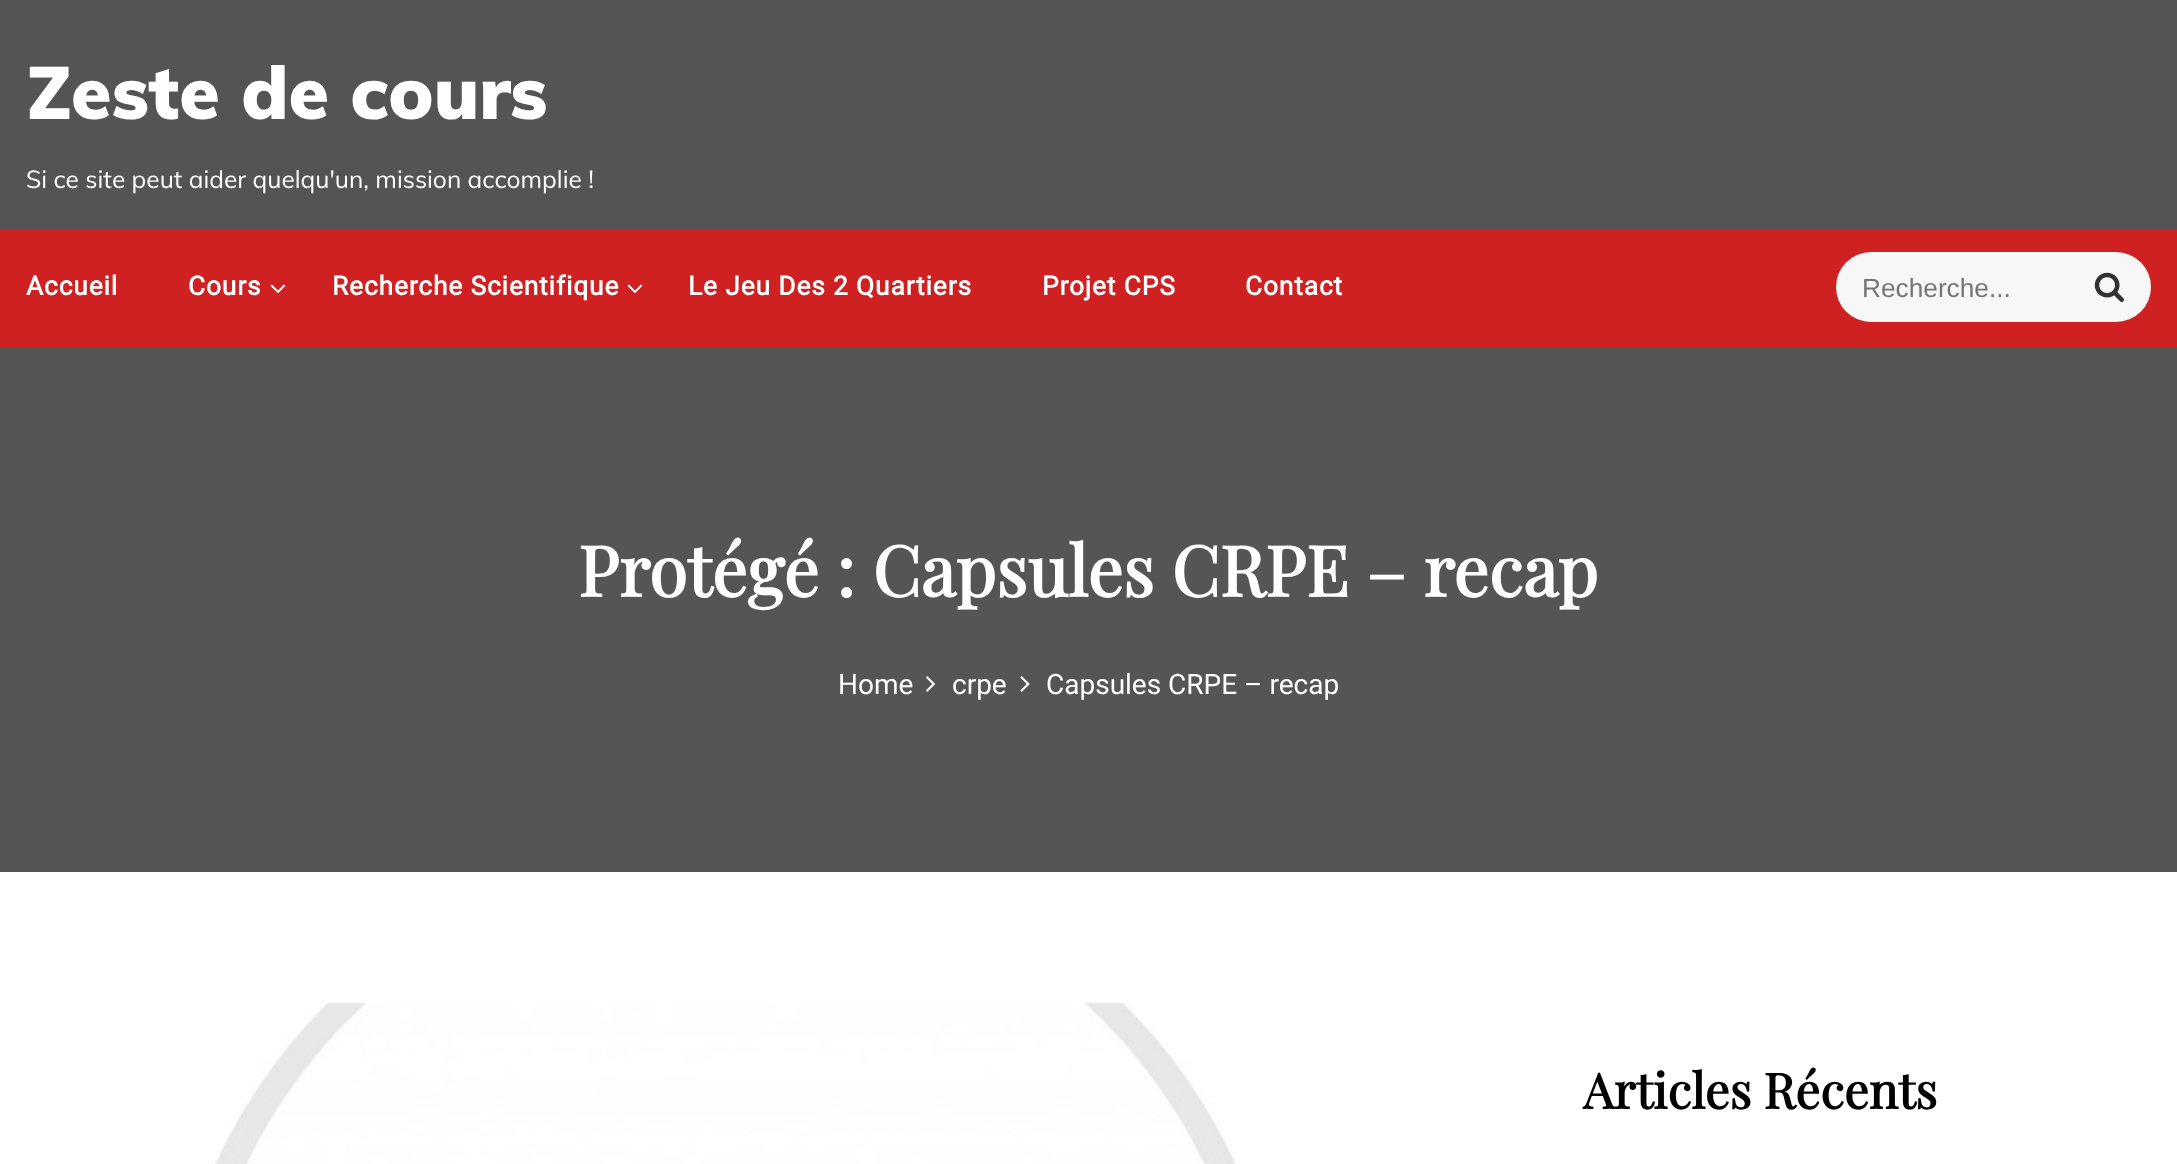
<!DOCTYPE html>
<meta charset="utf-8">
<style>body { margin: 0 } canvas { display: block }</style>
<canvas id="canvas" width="2177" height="1164"></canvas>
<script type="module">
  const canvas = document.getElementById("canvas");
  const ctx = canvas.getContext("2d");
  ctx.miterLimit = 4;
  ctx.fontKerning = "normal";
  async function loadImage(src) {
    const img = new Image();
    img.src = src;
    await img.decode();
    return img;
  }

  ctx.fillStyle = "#ffffff";
  ctx.fillRect(0, 0, 2177, 1164);
  ctx.fillStyle = "#545454";
  ctx.fillRect(0, 0, 2177, 229);
  ctx.font = "900 73.5px Muli";
  ctx.fillStyle = "#ffffff";
  ctx.fillText("Zeste de cours", 26, 119);
  ctx.font = "24.5px Muli";
  ctx.fillText("Si ce site peut aider quelqu'un, mission accomplie !", 26, 188);
  ctx.fillStyle = "#cf2121";
  ctx.fillRect(0, 229, 2177, 118);
  ctx.letterSpacing = "0.9px";
  ctx.font = "bold 26.25px Roboto";
  ctx.fillStyle = "#ffffff";
  ctx.fillText("Accueil", 26, 295);
  ctx.fillText("Cours", 188, 295);
  ctx.drawImage(await loadImage("img1.png"), 270, 284, 16, 9);
  ctx.fillText("Recherche Scientifique", 332, 295);
  ctx.drawImage(await loadImage("img1.png"), 627, 284, 16, 9);
  ctx.fillText("Le Jeu Des 2 Quartiers", 688, 295);
  ctx.fillText("Projet CPS", 1042, 295);
  ctx.fillText("Contact", 1245, 295);
  ctx.fillStyle = "#f7f7f7";
  ctx.beginPath();
  ctx.roundRect(1836, 252, 315, 70, 35);
  ctx.fill();
  ctx.letterSpacing = "0px";
  ctx.font = "26.25px Liberation Sans";
  ctx.fillStyle = "#757575";
  ctx.fillText("Recherche...", 1862, 297);
  ctx.drawImage(await loadImage("img2.png"), 2094, 272, 30, 30);
  ctx.fillStyle = "#555555";
  ctx.fillRect(0, 347, 2177, 525);
  ctx.font = "bold 70px Playfair Display";
  ctx.fillStyle = "#ffffff";
  ctx.fillText("Protégé : Capsules CRPE – recap", 578, 597);
  ctx.font = "28px Roboto";
  ctx.fillText("Home", 838, 694);
  ctx.drawImage(await loadImage("img3.png"), 926, 676, 9, 16);
  ctx.fillText("crpe", 952, 694);
  ctx.drawImage(await loadImage("img4.png"), 1020, 676, 10, 16);
  ctx.fillText("Capsules CRPE – recap", 1046, 694);
  ctx.drawImage(await loadImage("img5.png"), 215, 1002, 1021, 162);
  ctx.font = "bold 49px Playfair Display";
  ctx.fillStyle = "#000000";
  ctx.fillText("Articles Récents", 1583, 1109);
</script>
